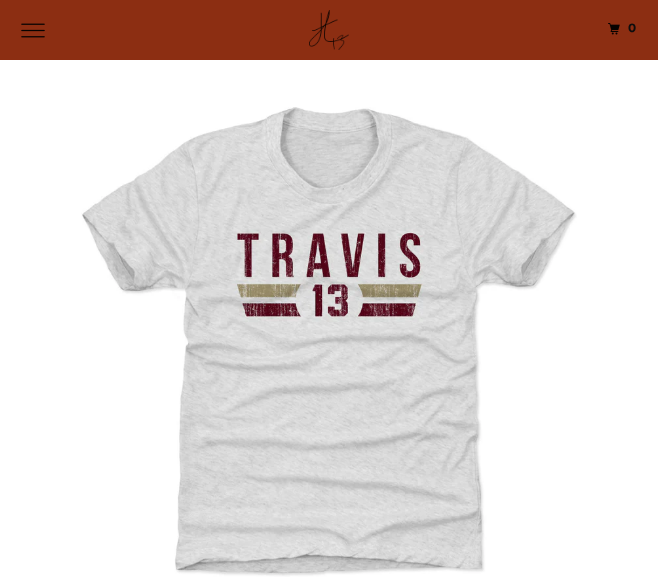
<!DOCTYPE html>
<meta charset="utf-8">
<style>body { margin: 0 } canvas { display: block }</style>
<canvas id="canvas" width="658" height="583"></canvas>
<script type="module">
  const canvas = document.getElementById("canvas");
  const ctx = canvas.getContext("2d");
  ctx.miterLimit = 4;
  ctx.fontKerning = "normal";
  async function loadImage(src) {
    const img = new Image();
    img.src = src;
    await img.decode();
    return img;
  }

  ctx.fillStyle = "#ffffff";
  ctx.fillRect(0, 0, 658, 583);
  ctx.fillStyle = "#8c2e12";
  ctx.fillRect(0, 0, 658, 60);
  ctx.drawImage(await loadImage("img1.png"), 21, 23, 24, 15);
  ctx.drawImage(await loadImage("img2.png"), 309, 10, 40, 40);
  ctx.drawImage(await loadImage("img3.png"), 608, 23, 12, 12);
  ctx.letterSpacing = "2px";
  ctx.font = "bold 12px Montserrat";
  ctx.fillStyle = "#0d0d0d";
  ctx.fillText("0", 628, 32);
  ctx.drawImage(await loadImage("img4.png"), 81, 107, 496, 470);
</script>
